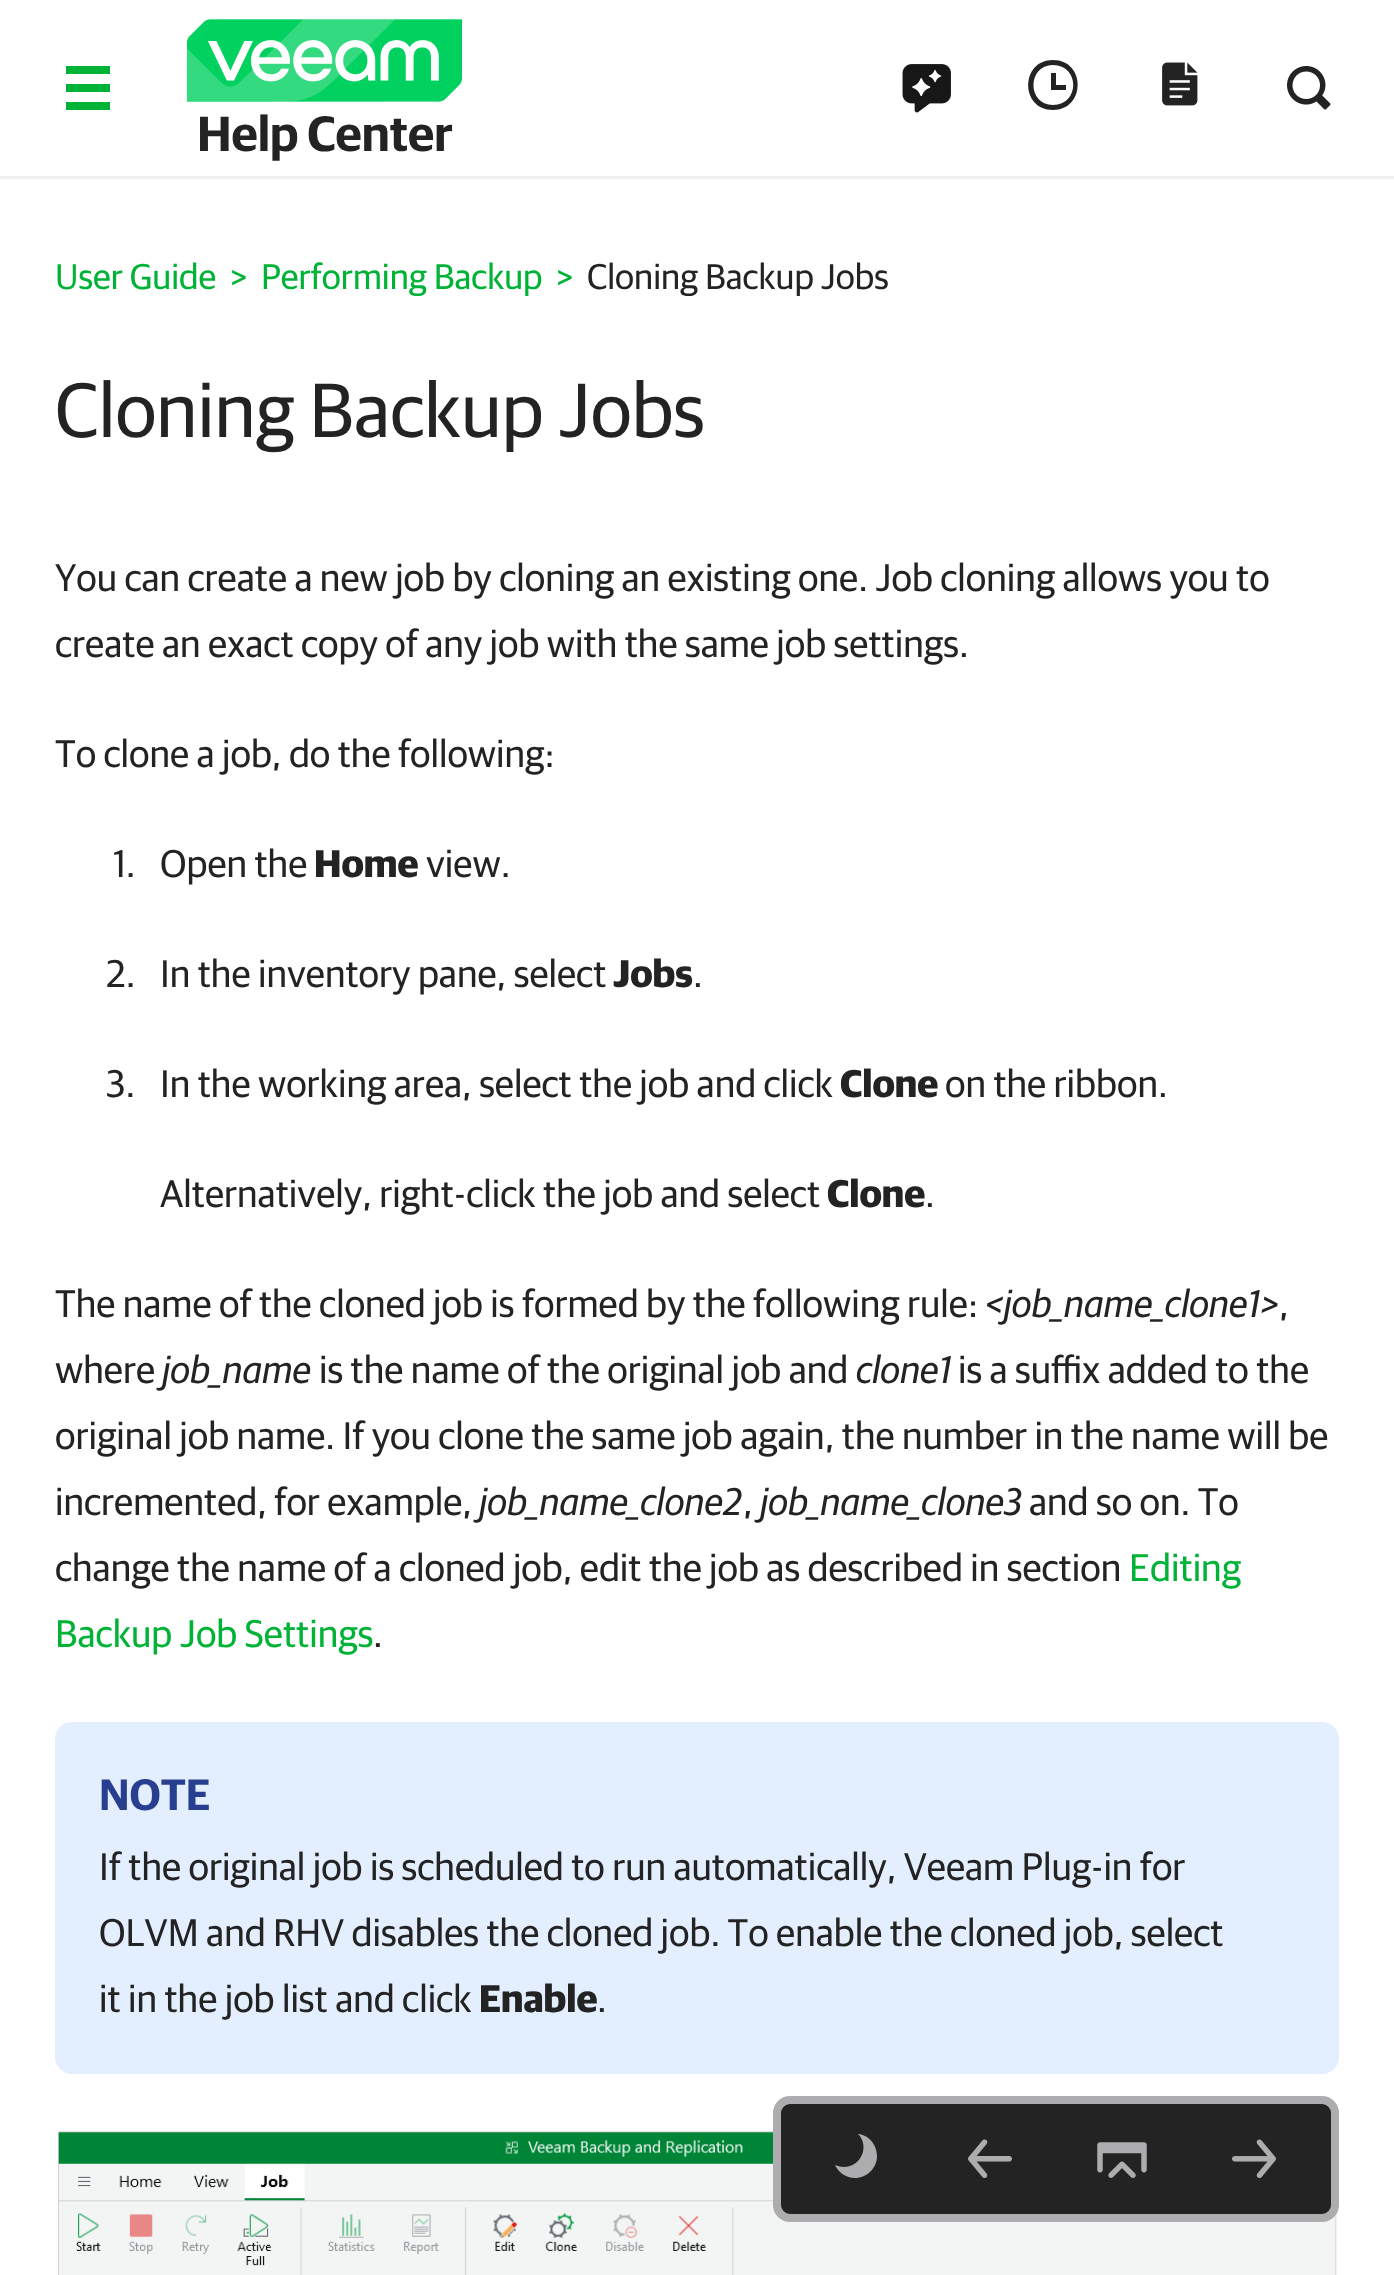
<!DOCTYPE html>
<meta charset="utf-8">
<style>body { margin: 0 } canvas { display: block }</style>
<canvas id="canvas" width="1394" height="2275"></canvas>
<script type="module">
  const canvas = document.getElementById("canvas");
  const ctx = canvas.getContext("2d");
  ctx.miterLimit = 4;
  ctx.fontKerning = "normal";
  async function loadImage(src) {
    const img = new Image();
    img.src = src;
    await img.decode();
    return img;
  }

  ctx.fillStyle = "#ffffff";
  ctx.fillRect(0, 0, 1394, 2275);
  ctx.fillStyle = "#f0f0f0";
  ctx.fillRect(0, 176, 1394, 3);
  ctx.drawImage(await loadImage("img1.png"), 902, 64, 49, 49);
  ctx.fillStyle = "#232323";
  ctx.beginPath();
  ctx.moveTo(1053, 110);
  ctx.bezierCurveTo(1020, 110, 1020, 60, 1053, 60);
  ctx.bezierCurveTo(1086, 60, 1086, 110, 1053, 110);
  ctx.closePath();
  ctx.moveTo(1053, 105);
  ctx.bezierCurveTo(1080, 105, 1080, 65, 1053, 65);
  ctx.bezierCurveTo(1027, 65, 1027, 105, 1053, 105);
  ctx.closePath();
  ctx.moveTo(1056, 85);
  ctx.lineTo(1066, 85);
  ctx.lineTo(1066, 90);
  ctx.lineTo(1051, 90);
  ctx.lineTo(1051, 73);
  ctx.lineTo(1056, 73);
  ctx.closePath();
  ctx.fill();
  ctx.drawImage(await loadImage("img2.png"), 1162, 62, 36, 44);
  ctx.drawImage(await loadImage("img3.png"), 1287, 66, 44, 44);
  ctx.fillStyle = "#00b336";
  ctx.beginPath();
  ctx.moveTo(66, 66);
  ctx.lineTo(110, 66);
  ctx.lineTo(110, 74);
  ctx.lineTo(66, 74);
  ctx.closePath();
  ctx.moveTo(66, 84);
  ctx.lineTo(110, 84);
  ctx.lineTo(110, 92);
  ctx.lineTo(66, 92);
  ctx.closePath();
  ctx.moveTo(110, 102);
  ctx.lineTo(66, 102);
  ctx.lineTo(66, 110);
  ctx.lineTo(110, 110);
  ctx.closePath();
  ctx.fill("evenodd");
  ctx.drawImage(await loadImage("img4.png"), 187, 19, 275, 83);
  ctx.font = "600 49.5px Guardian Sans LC";
  ctx.fillStyle = "#232323";
  ctx.fillText("Help Center", 197, 151);
  ctx.font = "35.75px Guardian Sans LC";
  ctx.fillStyle = "#00b336";
  ctx.fillText("User Guide", 55, 289);
  ctx.fillText(">", 230, 289);
  ctx.fillText("Performing Backup", 261, 289);
  ctx.fillText(">", 556, 289);
  ctx.fillStyle = "#232323";
  ctx.fillText("Cloning Backup Jobs", 587, 289);
  ctx.font = "77px Guardian Sans LC";
  ctx.fillText("Cloning Backup Jobs", 55, 437);
  ctx.font = "38.5px Guardian Sans LC";
  ctx.fillText("You can create a new job by cloning an existing one. Job cloning allows you to", 55, 591);
  ctx.fillText("create an exact copy of any job with the same job settings.", 55, 657);
  ctx.fillText("To clone a job, do the following:", 55, 767);
  ctx.fillText("1.", 113, 877);
  ctx.fillText("Open the", 160, 877);
  ctx.font = "bold 38.5px Guardian Sans LC";
  ctx.fillText("Home", 314, 877);
  ctx.font = "38.5px Guardian Sans LC";
  ctx.fillText("view.", 426, 877);
  ctx.fillText("2.", 106, 987);
  ctx.fillText("In the inventory pane, select", 160, 987);
  ctx.font = "bold 38.5px Guardian Sans LC";
  ctx.fillText("Jobs", 613, 987);
  ctx.font = "38.5px Guardian Sans LC";
  ctx.fillText(".", 693, 987);
  ctx.fillText("3.", 106, 1097);
  ctx.fillText("In the working area, select the job and click", 160, 1097);
  ctx.font = "bold 38.5px Guardian Sans LC";
  ctx.fillText("Clone", 840, 1097);
  ctx.font = "38.5px Guardian Sans LC";
  ctx.fillText("on the ribbon.", 945, 1097);
  ctx.fillText("Alternatively, right-click the job and select", 160, 1207);
  ctx.font = "bold 38.5px Guardian Sans LC";
  ctx.fillText("Clone", 827, 1207);
  ctx.font = "38.5px Guardian Sans LC";
  ctx.fillText(".", 925, 1207);
  ctx.fillText("The name of the cloned job is formed by the following rule:", 55, 1317);
  ctx.font = "italic 38.5px Guardian Sans LC";
  ctx.fillText("<job_name_clone1>", 985, 1317);
  ctx.font = "38.5px Guardian Sans LC";
  ctx.fillText(",", 1279, 1317);
  ctx.fillText("where", 55, 1383);
  ctx.font = "italic 38.5px Guardian Sans LC";
  ctx.fillText("job_name", 162, 1383);
  ctx.font = "38.5px Guardian Sans LC";
  ctx.fillText("is the name of the original job and", 319, 1383);
  ctx.font = "italic 38.5px Guardian Sans LC";
  ctx.fillText("clone1", 856, 1383);
  ctx.font = "38.5px Guardian Sans LC";
  ctx.fillText("is a suffix added to the", 958, 1383);
  ctx.fillText("original job name. If you clone the same job again, the number in the name will be", 55, 1449);
  ctx.fillText("incremented, for example,", 55, 1515);
  ctx.font = "italic 38.5px Guardian Sans LC";
  ctx.fillText("job_name_clone2", 479, 1515);
  ctx.font = "38.5px Guardian Sans LC";
  ctx.fillText(",", 743, 1515);
  ctx.font = "italic 38.5px Guardian Sans LC";
  ctx.fillText("job_name_clone3", 760, 1515);
  ctx.font = "38.5px Guardian Sans LC";
  ctx.fillText("and so on. To", 1029, 1515);
  ctx.fillText("change the name of a cloned job, edit the job as described in section", 55, 1581);
  ctx.fillStyle = "#00b336";
  ctx.fillText("Editing", 1129, 1581);
  ctx.fillText("Backup Job Settings", 55, 1647);
  ctx.fillStyle = "#232323";
  ctx.fillText(".", 373, 1647);
  ctx.fillStyle = "#e3eefe";
  ctx.beginPath();
  ctx.roundRect(55, 1722, 1284, 352, 17);
  ctx.fill();
  ctx.font = "600 44px Guardian Sans LC";
  ctx.fillStyle = "#283e8e";
  ctx.fillText("NOTE", 99, 1810);
  ctx.font = "38.5px Guardian Sans LC";
  ctx.fillStyle = "#232323";
  ctx.fillText("If the original job is scheduled to run automatically, Veeam Plug-in for", 99, 1880);
  ctx.fillText("OLVM and RHV disables the cloned job. To enable the cloned job, select", 99, 1946);
  ctx.fillText("it in the job list and click", 99, 2012);
  ctx.font = "bold 38.5px Guardian Sans LC";
  ctx.fillText("Enable", 479, 2012);
  ctx.font = "38.5px Guardian Sans LC";
  ctx.fillText(".", 597, 2012);
  ctx.drawImage(await loadImage("img5.png"), 58, 2131, 1279, 144);
  ctx.beginPath();
  ctx.roundRect(777, 2100, 558, 118, 13);
  ctx.fill();
  ctx.strokeStyle = "#adacaf";
  ctx.lineWidth = 8;
  ctx.stroke();
  ctx.fillStyle = "#adacaf";
  ctx.beginPath();
  ctx.moveTo(844, 2167);
  ctx.bezierCurveTo(861, 2167, 870, 2146, 858, 2134);
  ctx.bezierCurveTo(869, 2135, 877, 2145, 877, 2156);
  ctx.bezierCurveTo(877, 2168, 867, 2178, 855, 2178);
  ctx.bezierCurveTo(846, 2178, 838, 2172, 835, 2165);
  ctx.bezierCurveTo(838, 2166, 841, 2167, 844, 2167);
  ctx.closePath();
  ctx.fill();
  ctx.drawImage(await loadImage("img6.png"), 968, 2139, 44, 39);
  ctx.drawImage(await loadImage("img7.png"), 1097, 2142, 50, 36);
  ctx.drawImage(await loadImage("img8.png"), 1232, 2139, 44, 40);
</script>
